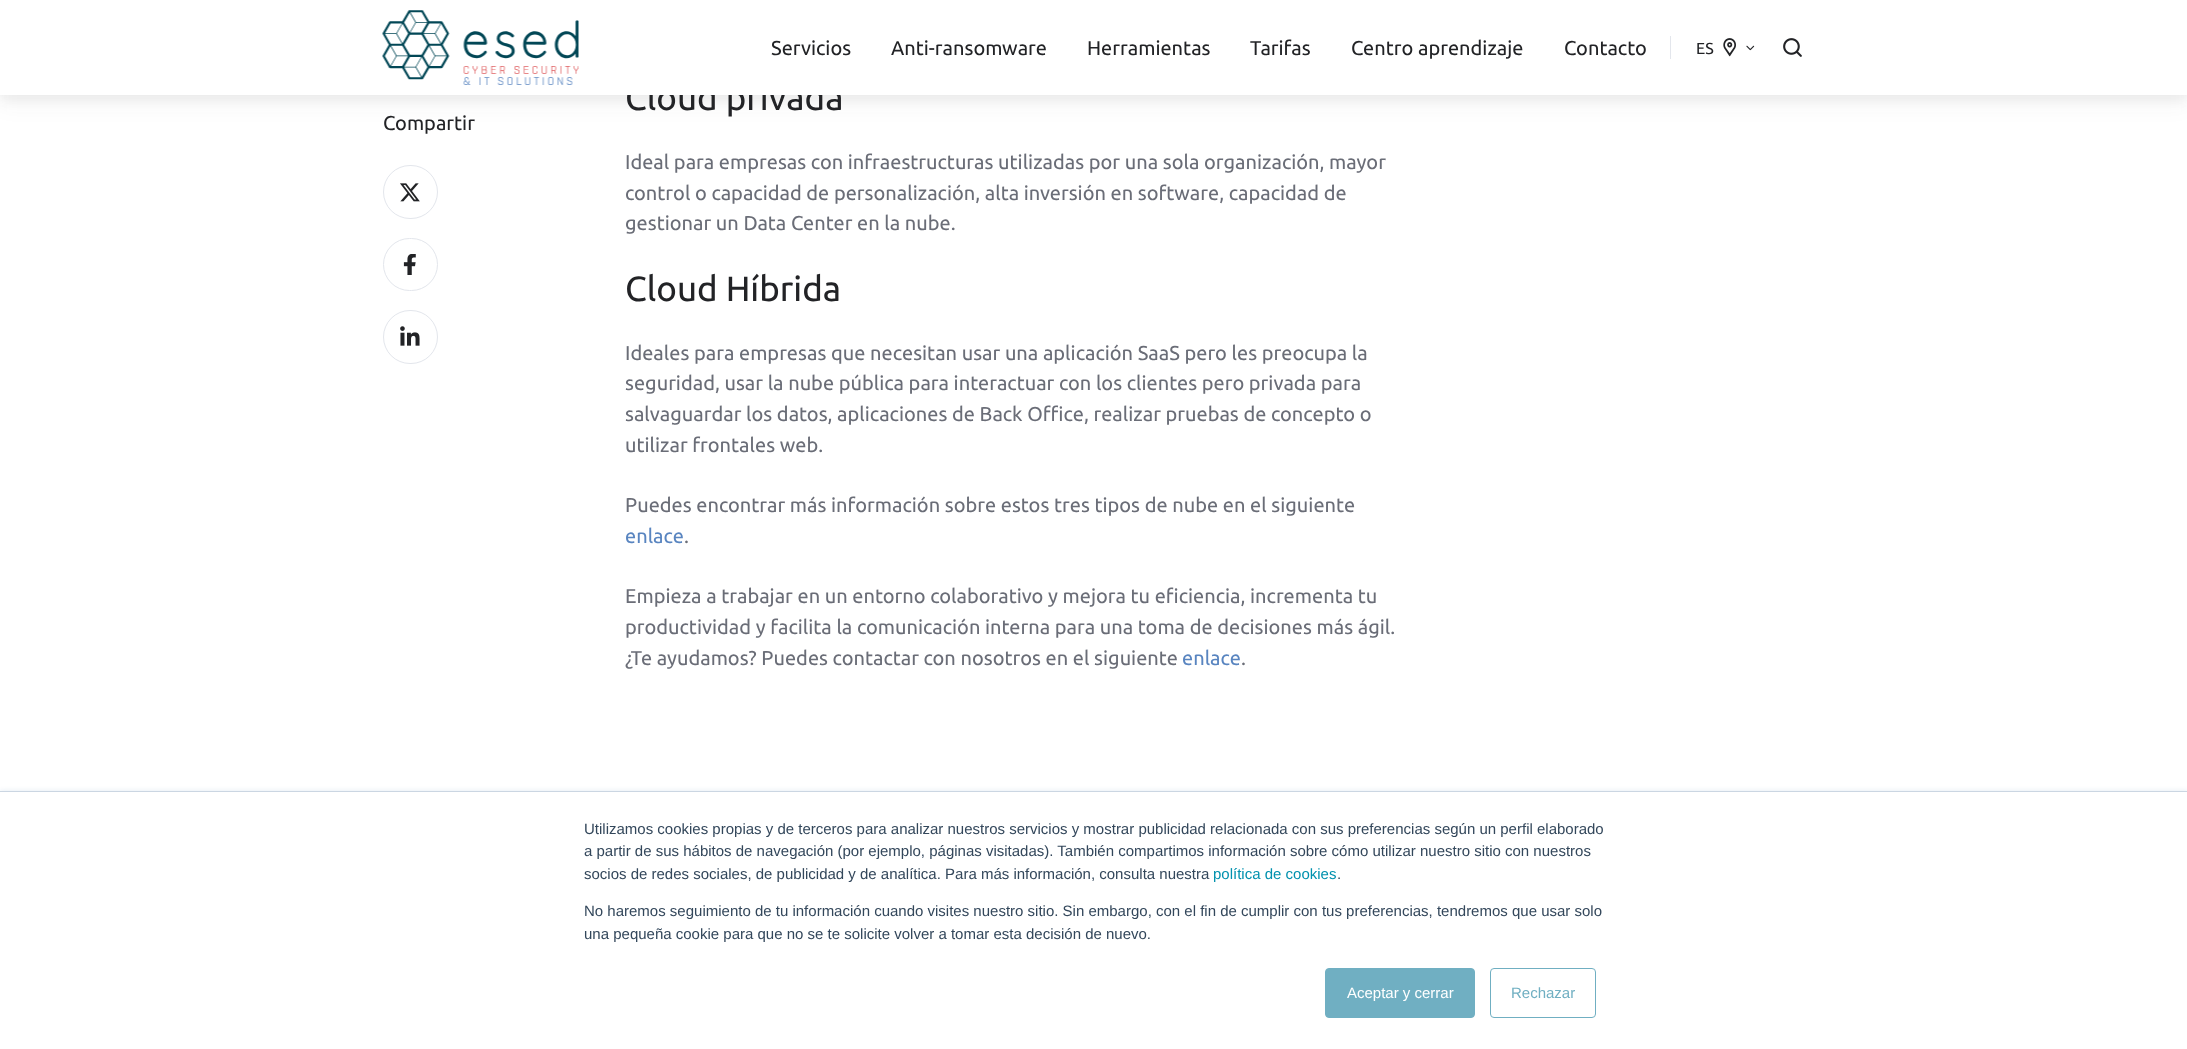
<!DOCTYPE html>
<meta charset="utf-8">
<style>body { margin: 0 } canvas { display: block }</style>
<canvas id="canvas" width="2187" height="1049"></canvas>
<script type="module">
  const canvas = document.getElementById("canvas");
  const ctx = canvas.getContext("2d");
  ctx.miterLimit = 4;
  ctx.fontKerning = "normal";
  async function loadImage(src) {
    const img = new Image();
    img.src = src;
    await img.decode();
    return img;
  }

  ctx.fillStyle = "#ffffff";
  ctx.fillRect(0, 0, 2187, 1049);
  ctx.fillStyle = "rgba(34, 35, 38, 0.05)";
  ctx.filter = "blur(5px)";
  ctx.beginPath();
  ctx.rect(0, 5, 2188, 95);
  ctx.fill();
  ctx.filter = "none";
  ctx.filter = "blur(10px)";
  ctx.beginPath();
  ctx.rect(0, 10, 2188, 95);
  ctx.fill();
  ctx.filter = "none";
  ctx.font = "35px Ubuntu";
  ctx.fillStyle = "#222326";
  ctx.fillText("Cloud privada", 625, 110);
  ctx.fillStyle = "#ffffff";
  ctx.fillRect(0, 0, 2187, 95);
  ctx.drawImage(await loadImage("img1.png"), 382, 10, 197, 75);
  ctx.font = "20px Ubuntu";
  ctx.fillStyle = "#222326";
  ctx.fillText("Servicios", 771, 55);
  ctx.fillText("Anti-ransomware", 891, 55);
  ctx.fillText("Herramientas", 1087, 55);
  ctx.fillText("Tarifas", 1250, 55);
  ctx.fillText("Centro aprendizaje", 1351, 55);
  ctx.fillText("Contacto", 1564, 55);
  ctx.fillStyle = "#e3e6ec";
  ctx.fillRect(1670, 36, 1, 23);
  ctx.font = "16px Ubuntu";
  ctx.fillStyle = "#222326";
  ctx.fillText("ES", 1696, 54);
  ctx.drawImage(await loadImage("img2.png"), 1723, 38, 13, 19);
  ctx.drawImage(await loadImage("img3.png"), 1746, 45, 9, 6);
  ctx.drawImage(await loadImage("img4.png"), 1783, 38, 19, 19);
  ctx.font = "20px Ubuntu";
  ctx.fillText("Compartir", 383, 130);
  ctx.beginPath();
  ctx.roundRect(383.5, 165.5, 54, 53, 26.5);
  ctx.strokeStyle = "#e3e6ec";
  ctx.stroke();
  ctx.drawImage(await loadImage("img5.png"), 400, 183, 20, 19);
  ctx.beginPath();
  ctx.roundRect(383.5, 238.5, 54, 52, 26);
  ctx.stroke();
  ctx.drawImage(await loadImage("img6.png"), 403, 254, 13, 21);
  ctx.beginPath();
  ctx.roundRect(383.5, 310.5, 54, 53, 26.5);
  ctx.stroke();
  ctx.drawImage(await loadImage("img7.png"), 400, 326, 20, 20);
  ctx.fillStyle = "#6a6d77";
  ctx.fillText("Ideal para empresas con infraestructuras utilizadas por una sola organización, mayor", 625, 169);
  ctx.fillText("control o capacidad de personalización, alta inversión en software, capacidad de", 625, 200);
  ctx.fillText("gestionar un Data Center en la nube.", 625, 230);
  ctx.font = "35px Ubuntu";
  ctx.fillStyle = "#222326";
  ctx.fillText("Cloud Híbrida", 625, 301);
  ctx.font = "20px Ubuntu";
  ctx.fillStyle = "#6a6d77";
  ctx.fillText("Ideales para empresas que necesitan usar una aplicación SaaS pero les preocupa la", 625, 360);
  ctx.fillText("seguridad, usar la nube pública para interactuar con los clientes pero privada para", 625, 390);
  ctx.fillText("salvaguardar los datos, aplicaciones de Back Office, realizar pruebas de concepto o", 625, 421);
  ctx.fillText("utilizar frontales web.", 625, 452);
  ctx.fillText("Puedes encontrar más información sobre estos tres tipos de nube en el siguiente", 625, 512);
  ctx.fillStyle = "#5985c0";
  ctx.fillText("enlace", 625, 543);
  ctx.fillStyle = "#6a6d77";
  ctx.fillText(".", 684, 543);
  ctx.fillText("Empieza a trabajar en un entorno colaborativo y mejora tu eficiencia, incrementa tu", 625, 603);
  ctx.fillText("productividad y facilita la comunicación interna para una toma de decisiones más ágil.", 625, 634);
  ctx.fillText("¿Te ayudamos? Puedes contactar con nosotros en el siguiente", 625, 665);
  ctx.fillStyle = "#5985c0";
  ctx.fillText("enlace", 1182, 665);
  ctx.fillStyle = "#6a6d77";
  ctx.fillText(".", 1241, 665);
  ctx.fillStyle = "#eaf0f6";
  ctx.filter = "blur(2px)";
  ctx.beginPath();
  ctx.rect(0, 790, 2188, 259);
  ctx.fill();
  ctx.filter = "none";
  ctx.fillStyle = "#ffffff";
  ctx.fillRect(0, 792, 2187, 257);
  ctx.fillStyle = "#cbd6e2";
  ctx.fillRect(0, 791, 2187, 1);
  ctx.font = "15px Liberation Sans";
  ctx.fillStyle = "#33475b";
  ctx.fillText("Utilizamos cookies propias y de terceros para analizar nuestros servicios y mostrar publicidad relacionada con sus preferencias según un perfil elaborado", 584, 834);
  ctx.fillText("a partir de sus hábitos de navegación (por ejemplo, páginas visitadas). También compartimos información sobre cómo utilizar nuestro sitio con nuestros", 584, 856);
  ctx.fillText("socios de redes sociales, de publicidad y de analítica. Para más información, consulta nuestra", 584, 879);
  ctx.fillStyle = "#0091ae";
  ctx.fillText("política de cookies", 1213, 879);
  ctx.fillStyle = "#33475b";
  ctx.fillText(".", 1337, 879);
  ctx.fillText("No haremos seguimiento de tu información cuando visites nuestro sitio. Sin embargo, con el fin de cumplir con tus preferencias, tendremos que usar solo", 584, 916);
  ctx.fillText("una pequeña cookie para que no se te solicite volver a tomar esta decisión de nuevo.", 584, 939);
  ctx.fillStyle = "#70afc2";
  ctx.beginPath();
  ctx.roundRect(1325.5, 968.5, 149, 49, 3.5);
  ctx.fill();
  ctx.strokeStyle = "#70afc2";
  ctx.stroke();
  ctx.fillStyle = "#ffffff";
  ctx.fillText("Aceptar y cerrar", 1347, 998);
  ctx.beginPath();
  ctx.roundRect(1490.5, 968.5, 105, 49, 3.5);
  ctx.stroke();
  ctx.fillStyle = "#70afc2";
  ctx.fillText("Rechazar", 1511, 998);
</script>
